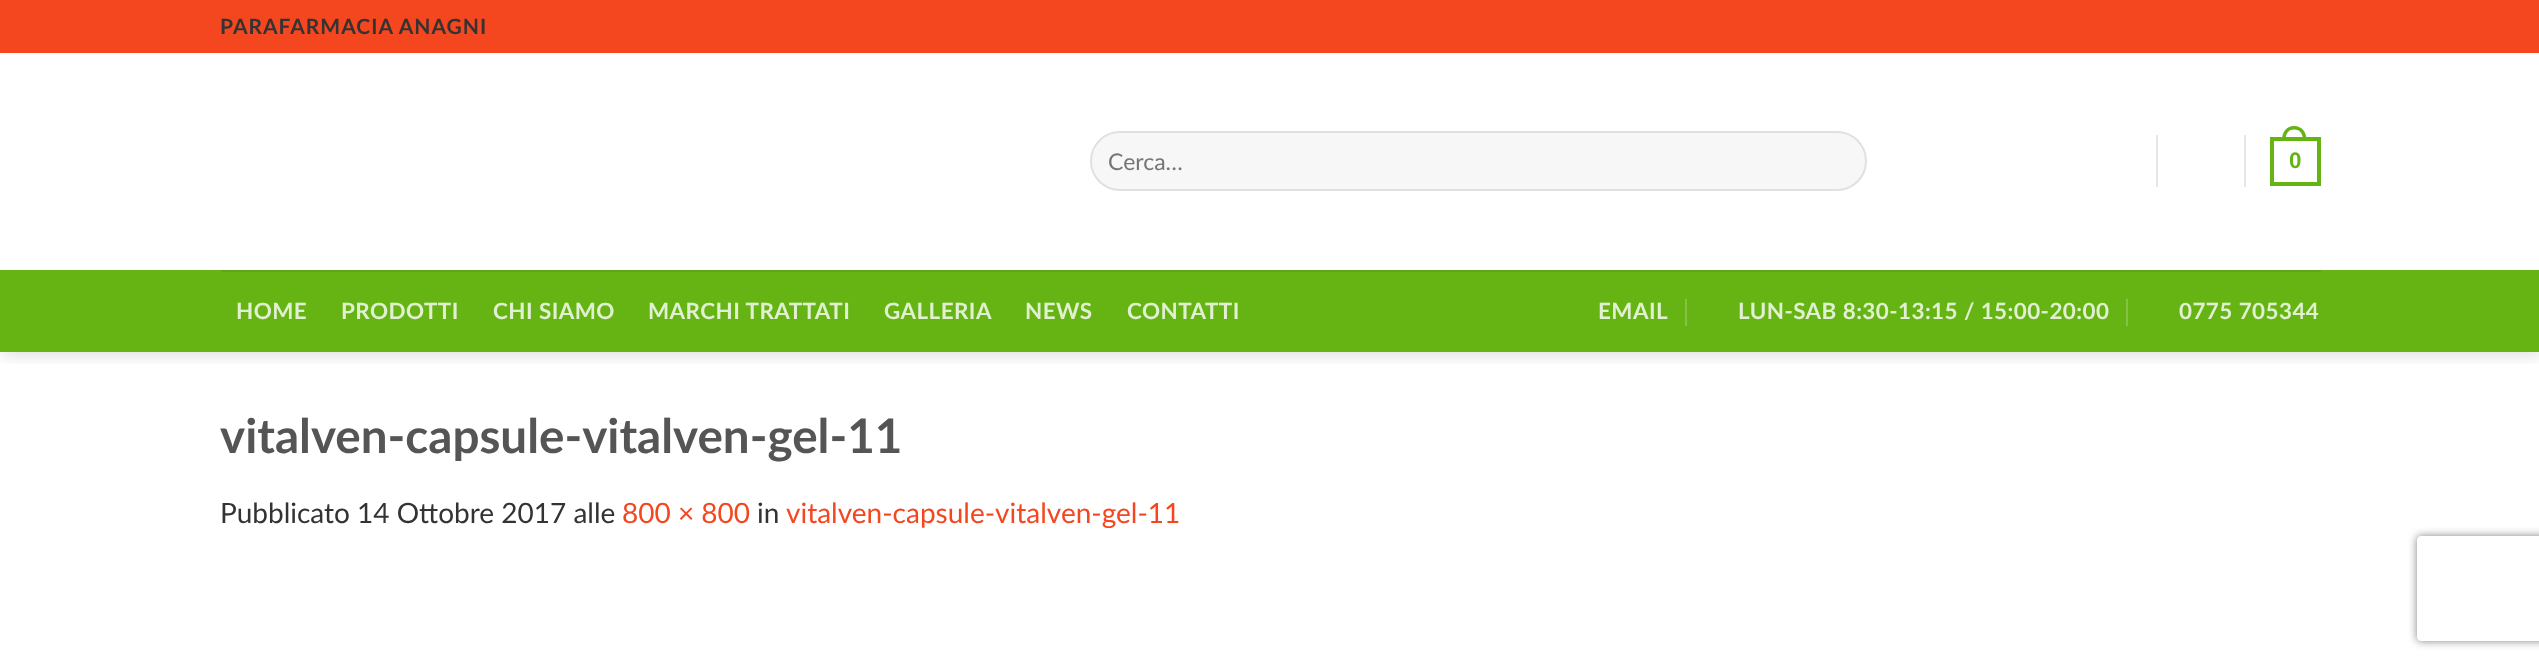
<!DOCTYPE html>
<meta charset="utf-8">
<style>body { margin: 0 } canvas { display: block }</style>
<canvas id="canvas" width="2539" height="665"></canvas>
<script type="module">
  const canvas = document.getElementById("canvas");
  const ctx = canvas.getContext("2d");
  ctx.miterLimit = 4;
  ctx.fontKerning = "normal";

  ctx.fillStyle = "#ffffff";
  ctx.fillRect(0, 0, 2539, 665);
  ctx.save();
  ctx.beginPath();
  ctx.rect(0, 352, 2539, 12);
  ctx.clip();
  ctx.fillStyle = "rgba(0, 0, 0, 0.15)";
  ctx.filter = "blur(9px)";
  ctx.beginPath();
  ctx.rect(2, 2, 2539, 352);
  ctx.fill();
  ctx.filter = "none";
  ctx.restore();
  ctx.fillStyle = "#f4461f";
  ctx.fillRect(0, 0, 2539, 53);
  ctx.letterSpacing = "1px";
  ctx.font = "bold 21px Lato";
  ctx.fillStyle = "#333333";
  ctx.fillText("PARAFARMACIA ANAGNI", 220, 34);
  ctx.fillStyle = "#f7f7f7";
  ctx.beginPath();
  ctx.roundRect(1090, 131, 777, 60, 30);
  ctx.fill();
  ctx.beginPath();
  ctx.roundRect(1091, 132, 775, 58, 29);
  ctx.strokeStyle = "rgba(0, 0, 0, 0.09)";
  ctx.lineWidth = 2;
  ctx.stroke();
  ctx.letterSpacing = "0px";
  ctx.font = "23px Lato";
  ctx.fillStyle = "#757575";
  ctx.fillText("Cerca…", 1108, 170);
  ctx.fillStyle = "#e6e6e6";
  ctx.fillRect(2156, 135, 2, 52);
  ctx.fillRect(2244, 135, 2, 52);
  ctx.strokeStyle = "#65b414";
  ctx.lineWidth = 4;
  ctx.strokeRect(2272, 139, 47, 45);
  ctx.fillStyle = "#65b414";
  ctx.beginPath();
  ctx.moveTo(2294, 126);
  ctx.bezierCurveTo(2302.5, 126, 2306.5, 132.5, 2306.5, 140);
  ctx.lineTo(2282, 140);
  ctx.bezierCurveTo(2282, 132.5, 2286, 126, 2294, 126);
  ctx.closePath();
  ctx.moveTo(2294, 129.5);
  ctx.bezierCurveTo(2300.5, 129.5, 2303, 134.5, 2303, 140);
  ctx.lineTo(2285.5, 140);
  ctx.bezierCurveTo(2285.5, 134.5, 2288, 129.5, 2294, 129.5);
  ctx.closePath();
  ctx.fill("evenodd");
  ctx.letterSpacing = "0.45px";
  ctx.font = "bold 22.4px Liberation Sans";
  ctx.fillText("0", 2289, 168);
  ctx.fillRect(0, 270, 2539, 82);
  ctx.fillStyle = "#60a717";
  ctx.fillRect(221, 270, 2100, 2);
  ctx.font = "bold 22.4px Lato";
  ctx.fillStyle = "#e0f0d0";
  ctx.fillText("HOME", 236, 319);
  ctx.fillText("PRODOTTI", 341, 319);
  ctx.fillText("CHI SIAMO", 493, 319);
  ctx.fillText("MARCHI TRATTATI", 648, 319);
  ctx.fillText("GALLERIA", 884, 319);
  ctx.fillText("NEWS", 1025, 319);
  ctx.fillText("CONTATTI", 1127, 319);
  ctx.fillText("EMAIL", 1598, 319);
  ctx.fillStyle = "#84c343";
  ctx.fillRect(1685, 299, 2, 27);
  ctx.fillStyle = "#e0f0d0";
  ctx.fillText("LUN-SAB 8:30-13:15 / 15:00-20:00", 1738, 319);
  ctx.fillStyle = "#84c343";
  ctx.fillRect(2126, 299, 2, 27);
  ctx.fillStyle = "#e0f0d0";
  ctx.fillText("0775 705344", 2179, 319);
  ctx.letterSpacing = "0px";
  ctx.font = "bold 47.6px Lato";
  ctx.fillStyle = "#555555";
  ctx.fillText("vitalven-capsule-vitalven-gel-11", 220, 453);
  ctx.font = "28px Lato";
  ctx.fillStyle = "#333333";
  ctx.fillText("Pubblicato 14 Ottobre 2017 alle", 220, 523);
  ctx.fillStyle = "#f4461f";
  ctx.fillText("800 × 800", 622, 523);
  ctx.fillStyle = "#333333";
  ctx.fillText("in", 757, 523);
  ctx.fillStyle = "#f4461f";
  ctx.fillText("vitalven-capsule-vitalven-gel-11", 786, 523);
  ctx.save();
  ctx.beginPath();
  ctx.moveTo(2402, 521);
  ctx.lineTo(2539, 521);
  ctx.lineTo(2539, 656);
  ctx.lineTo(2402, 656);
  ctx.closePath();
  ctx.moveTo(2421, 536);
  ctx.lineTo(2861, 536);
  ctx.bezierCurveTo(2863, 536, 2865, 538, 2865, 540);
  ctx.lineTo(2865, 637);
  ctx.bezierCurveTo(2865, 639, 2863, 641, 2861, 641);
  ctx.lineTo(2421, 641);
  ctx.bezierCurveTo(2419, 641, 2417, 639, 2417, 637);
  ctx.lineTo(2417, 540);
  ctx.bezierCurveTo(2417, 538, 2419, 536, 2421, 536);
  ctx.closePath();
  ctx.clip("evenodd");
  ctx.fillStyle = "#808080";
  ctx.filter = "blur(4.5px)";
  ctx.beginPath();
  ctx.roundRect(2417, 536, 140, 105, 4);
  ctx.fill();
  ctx.filter = "none";
  ctx.restore();
</script>
